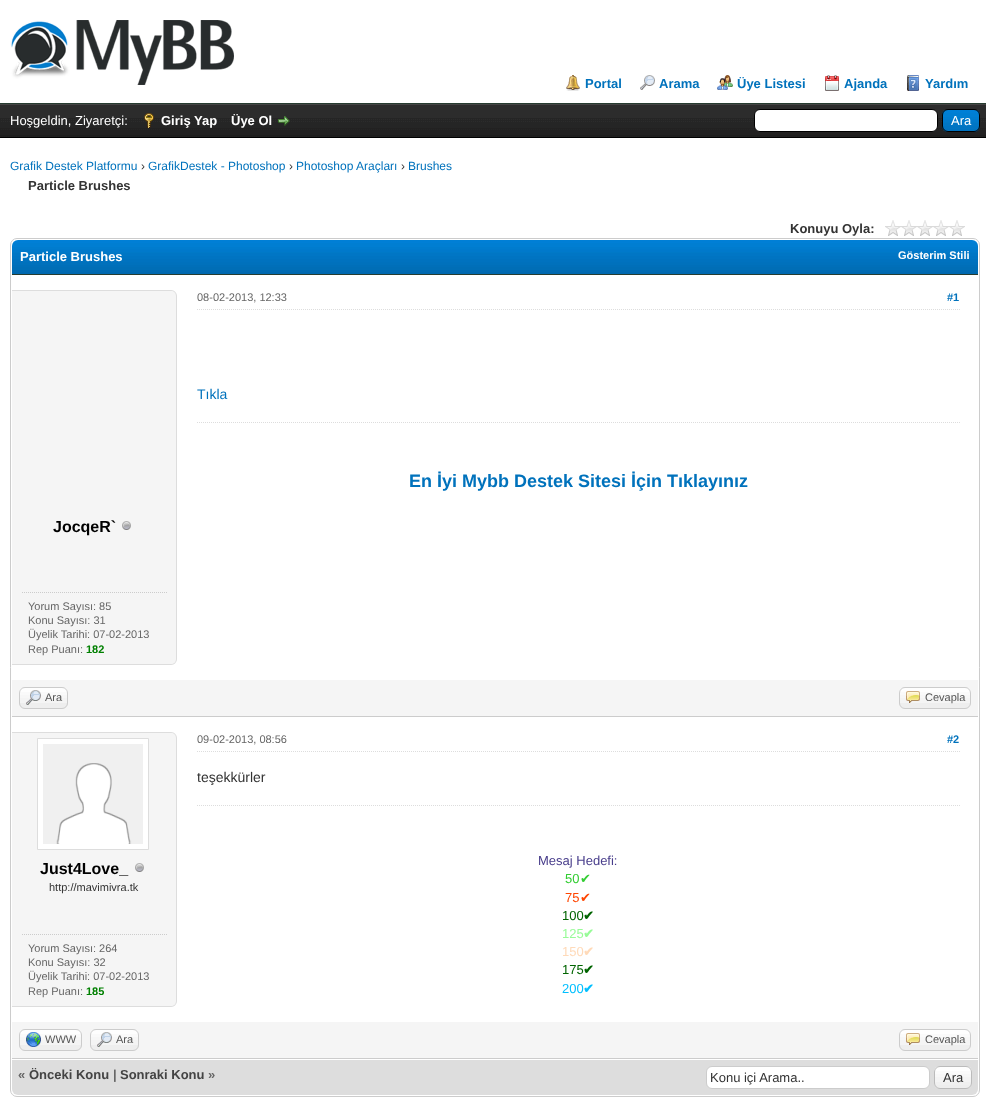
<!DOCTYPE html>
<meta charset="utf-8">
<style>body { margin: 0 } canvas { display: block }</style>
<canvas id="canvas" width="986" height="1116"></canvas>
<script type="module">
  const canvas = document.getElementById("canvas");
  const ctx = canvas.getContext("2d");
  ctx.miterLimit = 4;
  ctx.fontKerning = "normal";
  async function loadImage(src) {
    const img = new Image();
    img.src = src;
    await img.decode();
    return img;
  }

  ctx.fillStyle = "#ffffff";
  ctx.fillRect(0, 0, 986, 1116);
  ctx.fillStyle = "#263c30";
  ctx.fillRect(0, 103, 986, 1);
  ctx.drawImage(await loadImage("img1.png"), 10, 20, 224, 65);
  ctx.drawImage(await loadImage("img2.png"), 566, 75, 14, 16);
  ctx.font = "bold 13px Liberation Sans";
  ctx.fillStyle = "#0072bc";
  ctx.fillText("Portal", 585, 88);
  ctx.drawImage(await loadImage("img3.png"), 640, 75, 15, 15);
  ctx.fillText("Arama", 659, 88);
  ctx.drawImage(await loadImage("img4.png"), 717, 75, 16, 15);
  ctx.fillText("Üye Listesi", 737, 88);
  ctx.drawImage(await loadImage("img5.png"), 825, 75, 14, 16);
  ctx.fillText("Ajanda", 844, 88);
  ctx.drawImage(await loadImage("img6.png"), 907, 75, 12, 16);
  ctx.fillText("Yardım", 925, 88);
  ctx.drawImage(await loadImage("img7.png"), 0, 105, 986, 32);
  ctx.fillStyle = "#444444";
  ctx.fillRect(0, 104, 986, 1);
  ctx.fillStyle = "#000000";
  ctx.fillRect(0, 137, 986, 1);
  ctx.font = "13px Liberation Sans";
  ctx.fillStyle = "#ffffff";
  ctx.fillText("Hoşgeldin, Ziyaretçi:", 10, 125);
  ctx.drawImage(await loadImage("img8.png"), 144, 113, 10, 15);
  ctx.font = "bold 13px Liberation Sans";
  ctx.fillText("Giriş Yap", 161, 125);
  ctx.fillText("Üye Ol", 231, 125);
  ctx.drawImage(await loadImage("img9.png"), 278, 116, 12, 10);
  ctx.beginPath();
  ctx.roundRect(754.5, 109.5, 183, 22, 5.5);
  ctx.fill();
  ctx.strokeStyle = "#000000";
  ctx.stroke();
  ctx.drawImage(await loadImage("img10.png"), 942, 110, 38, 22);
  ctx.beginPath();
  ctx.roundRect(942.5, 109.5, 37, 22, 5.5);
  ctx.stroke();
  ctx.font = "13px Liberation Sans";
  ctx.fillText("Ara", 951, 125);
  ctx.font = "12px Liberation Sans";
  ctx.fillStyle = "#0072bc";
  ctx.fillText("Grafik Destek Platformu", 10, 170);
  ctx.fillStyle = "#333333";
  ctx.fillText("›", 141, 170);
  ctx.fillStyle = "#0072bc";
  ctx.fillText("GrafikDestek - Photoshop", 148, 170);
  ctx.fillStyle = "#333333";
  ctx.fillText("›", 289, 170);
  ctx.fillStyle = "#0072bc";
  ctx.fillText("Photoshop Araçları", 296, 170);
  ctx.fillStyle = "#333333";
  ctx.fillText("›", 401, 170);
  ctx.fillStyle = "#0072bc";
  ctx.fillText("Brushes", 408, 170);
  ctx.font = "bold 13px Liberation Sans";
  ctx.fillStyle = "#333333";
  ctx.fillText("Particle Brushes", 28, 190);
  ctx.fillText("Konuyu Oyla:", 790, 233);
  ctx.drawImage(await loadImage("img11.png"), 885, 220, 80, 16);
  ctx.beginPath();
  ctx.roundRect(10.5, 238.5, 969, 858, 6.5);
  ctx.strokeStyle = "#cccccc";
  ctx.stroke();
  ctx.drawImage(await loadImage("img12.png"), 12, 240, 966, 34);
  ctx.fillStyle = "#263c30";
  ctx.fillRect(12, 274, 966, 1);
  ctx.fillStyle = "#ffffff";
  ctx.fillText("Particle Brushes", 20, 261);
  ctx.font = "bold 11px Liberation Sans";
  ctx.fillText("Gösterim Stili", 898, 259);
  ctx.beginPath();
  ctx.moveTo(197, 309.5);
  ctx.lineTo(960, 309.5);
  ctx.strokeStyle = "#dddddd";
  ctx.setLineDash([1, 1]);
  ctx.stroke();
  ctx.font = "11px Liberation Sans";
  ctx.fillStyle = "#666666";
  ctx.fillText("08-02-2013, 12:33", 197, 301);
  ctx.font = "bold 11px Liberation Sans";
  ctx.fillStyle = "#0072bc";
  ctx.fillText("#1", 947, 301);
  ctx.font = "14px Liberation Sans";
  ctx.fillText("Tıkla", 197, 399);
  ctx.beginPath();
  ctx.moveTo(197, 422.5);
  ctx.lineTo(960, 422.5);
  ctx.stroke();
  ctx.font = "bold 18px Liberation Sans";
  ctx.fillText("En İyi Mybb Destek Sitesi İçin Tıklayınız", 409, 487);
  ctx.fillStyle = "#f5f5f5";
  ctx.beginPath();
  ctx.roundRect(12, 290, 165, 375, [0, 6, 6, 0]);
  ctx.fill();
  ctx.fillStyle = "#dddddd";
  ctx.beginPath();
  ctx.moveTo(12, 290);
  ctx.lineTo(171, 290);
  ctx.bezierCurveTo(174, 290, 177, 293, 177, 296);
  ctx.lineTo(177, 659);
  ctx.bezierCurveTo(177, 662, 174, 665, 171, 665);
  ctx.lineTo(12, 665);
  ctx.closePath();
  ctx.moveTo(12, 291);
  ctx.lineTo(171, 291);
  ctx.bezierCurveTo(174, 291, 176, 293, 176, 296);
  ctx.lineTo(176, 659);
  ctx.bezierCurveTo(176, 662, 174, 664, 171, 664);
  ctx.lineTo(12, 664);
  ctx.closePath();
  ctx.fill("evenodd");
  ctx.font = "bold 16px Liberation Sans";
  ctx.fillStyle = "#000000";
  ctx.fillText("JocqeR`", 53, 532);
  ctx.drawImage(await loadImage("img13.png"), 122, 521, 9, 9);
  ctx.beginPath();
  ctx.moveTo(22, 592.5);
  ctx.lineTo(167, 592.5);
  ctx.strokeStyle = "#cccccc";
  ctx.stroke();
  ctx.font = "11px Liberation Sans";
  ctx.fillStyle = "#666666";
  ctx.fillText("Yorum Sayısı: 85", 28, 610);
  ctx.fillText("Konu Sayısı: 31", 28, 624);
  ctx.fillText("Üyelik Tarihi: 07-02-2013", 28, 638);
  ctx.fillText("Rep Puanı:", 28, 653);
  ctx.font = "bold 11px Liberation Sans";
  ctx.fillStyle = "#008000";
  ctx.fillText("182", 86, 653);
  ctx.fillStyle = "#f5f5f5";
  ctx.fillRect(12, 680, 966, 36);
  ctx.fillStyle = "#cccccc";
  ctx.fillRect(12, 716, 966, 1);
  ctx.fillStyle = "#eeeeee";
  ctx.beginPath();
  ctx.roundRect(19, 687, 49, 22, 6);
  ctx.fill();
  ctx.drawImage(await loadImage("img14.png"), 19, 688, 49, 15);
  ctx.beginPath();
  ctx.roundRect(19.5, 687.5, 48, 21, 5.5);
  ctx.setLineDash([]);
  ctx.stroke();
  ctx.drawImage(await loadImage("img15.png"), 26, 690, 15, 15);
  ctx.font = "11px Liberation Sans";
  ctx.fillStyle = "#555555";
  ctx.fillText("Ara", 45, 701);
  ctx.fillStyle = "#eeeeee";
  ctx.beginPath();
  ctx.roundRect(899, 687, 72, 22, 6);
  ctx.fill();
  ctx.drawImage(await loadImage("img16.png"), 899, 688, 72, 15);
  ctx.beginPath();
  ctx.roundRect(899.5, 687.5, 71, 21, 5.5);
  ctx.stroke();
  ctx.drawImage(await loadImage("img17.png"), 906, 691, 14, 12);
  ctx.fillStyle = "#555555";
  ctx.fillText("Cevapla", 925, 701);
  ctx.fillStyle = "#f5f5f5";
  ctx.beginPath();
  ctx.roundRect(12, 732, 165, 275, [0, 6, 6, 0]);
  ctx.fill();
  ctx.fillStyle = "#dddddd";
  ctx.beginPath();
  ctx.moveTo(12, 732);
  ctx.lineTo(171, 732);
  ctx.bezierCurveTo(174, 732, 177, 735, 177, 738);
  ctx.lineTo(177, 1001);
  ctx.bezierCurveTo(177, 1004, 174, 1007, 171, 1007);
  ctx.lineTo(12, 1007);
  ctx.closePath();
  ctx.moveTo(12, 733);
  ctx.lineTo(171, 733);
  ctx.bezierCurveTo(174, 733, 176, 735, 176, 738);
  ctx.lineTo(176, 1001);
  ctx.bezierCurveTo(176, 1004, 174, 1006, 171, 1006);
  ctx.lineTo(12, 1006);
  ctx.closePath();
  ctx.fill("evenodd");
  ctx.fillStyle = "#ffffff";
  ctx.beginPath();
  ctx.rect(37.5, 738.5, 111, 111);
  ctx.fill();
  ctx.strokeStyle = "#dddddd";
  ctx.stroke();
  ctx.drawImage(await loadImage("img18.png"), 43, 744, 100, 100);
  ctx.font = "bold 16px Liberation Sans";
  ctx.fillStyle = "#000000";
  ctx.fillText("Just4Love_", 40, 874);
  ctx.drawImage(await loadImage("img13.png"), 135, 863, 9, 9);
  ctx.font = "11px Liberation Sans";
  ctx.fillStyle = "#333333";
  ctx.fillText("http://mavimivra.tk", 49, 891);
  ctx.beginPath();
  ctx.moveTo(22, 934.5);
  ctx.lineTo(167, 934.5);
  ctx.strokeStyle = "#cccccc";
  ctx.setLineDash([1, 1]);
  ctx.stroke();
  ctx.fillStyle = "#666666";
  ctx.fillText("Yorum Sayısı: 264", 28, 952);
  ctx.fillText("Konu Sayısı: 32", 28, 966);
  ctx.fillText("Üyelik Tarihi: 07-02-2013", 28, 980);
  ctx.fillText("Rep Puanı:", 28, 995);
  ctx.font = "bold 11px Liberation Sans";
  ctx.fillStyle = "#008000";
  ctx.fillText("185", 86, 995);
  ctx.beginPath();
  ctx.moveTo(197, 751.5);
  ctx.lineTo(960, 751.5);
  ctx.strokeStyle = "#dddddd";
  ctx.stroke();
  ctx.font = "11px Liberation Sans";
  ctx.fillStyle = "#666666";
  ctx.fillText("09-02-2013, 08:56", 197, 743);
  ctx.font = "bold 11px Liberation Sans";
  ctx.fillStyle = "#0072bc";
  ctx.fillText("#2", 947, 743);
  ctx.font = "14px Liberation Sans";
  ctx.fillStyle = "#333333";
  ctx.fillText("teşekkürler", 197, 782);
  ctx.beginPath();
  ctx.moveTo(197, 805.5);
  ctx.lineTo(960, 805.5);
  ctx.stroke();
  ctx.font = "13px Liberation Sans";
  ctx.fillStyle = "#483d8b";
  ctx.fillText("Mesaj Hedefi:", 538, 865);
  ctx.fillStyle = "#32cd32";
  ctx.fillText("50", 565, 883);
  ctx.font = "13px DejaVu Sans";
  ctx.fillText("✔", 580, 883);
  ctx.font = "13px Liberation Sans";
  ctx.fillStyle = "#ff4500";
  ctx.fillText("75", 565, 902);
  ctx.font = "13px DejaVu Sans";
  ctx.fillText("✔", 580, 902);
  ctx.font = "13px Liberation Sans";
  ctx.fillStyle = "#006400";
  ctx.fillText("100", 562, 920);
  ctx.font = "bold 13px DejaVu Sans";
  ctx.fillText("✔", 583, 920);
  ctx.font = "13px Liberation Sans";
  ctx.fillStyle = "#98fb98";
  ctx.fillText("125", 562, 938);
  ctx.font = "bold 13px DejaVu Sans";
  ctx.fillText("✔", 583, 938);
  ctx.font = "13px Liberation Sans";
  ctx.fillStyle = "#ffdab9";
  ctx.fillText("150", 562, 956);
  ctx.font = "bold 13px DejaVu Sans";
  ctx.fillText("✔", 583, 956);
  ctx.font = "13px Liberation Sans";
  ctx.fillStyle = "#006400";
  ctx.fillText("175", 562, 974);
  ctx.font = "bold 13px DejaVu Sans";
  ctx.fillText("✔", 583, 974);
  ctx.font = "13px Liberation Sans";
  ctx.fillStyle = "#00bfff";
  ctx.fillText("200", 562, 993);
  ctx.font = "bold 13px DejaVu Sans";
  ctx.fillText("✔", 583, 993);
  ctx.fillStyle = "#f5f5f5";
  ctx.fillRect(12, 1022, 966, 36);
  ctx.fillStyle = "#cccccc";
  ctx.fillRect(12, 1058, 966, 1);
  ctx.fillStyle = "#eeeeee";
  ctx.beginPath();
  ctx.roundRect(19, 1029, 63, 22, 6);
  ctx.fill();
  ctx.drawImage(await loadImage("img19.png"), 19, 1030, 63, 15);
  ctx.beginPath();
  ctx.roundRect(19.5, 1029.5, 62, 21, 5.5);
  ctx.strokeStyle = "#cccccc";
  ctx.setLineDash([]);
  ctx.stroke();
  ctx.drawImage(await loadImage("img20.png"), 26, 1032, 15, 15);
  ctx.font = "11px Liberation Sans";
  ctx.fillStyle = "#555555";
  ctx.fillText("WWW", 45, 1043);
  ctx.fillStyle = "#eeeeee";
  ctx.beginPath();
  ctx.roundRect(90, 1029, 49, 22, 6);
  ctx.fill();
  ctx.drawImage(await loadImage("img14.png"), 90, 1030, 49, 15);
  ctx.beginPath();
  ctx.roundRect(90.5, 1029.5, 48, 21, 5.5);
  ctx.stroke();
  ctx.drawImage(await loadImage("img15.png"), 97, 1032, 15, 15);
  ctx.fillStyle = "#555555";
  ctx.fillText("Ara", 116, 1043);
  ctx.fillStyle = "#eeeeee";
  ctx.beginPath();
  ctx.roundRect(899, 1029, 72, 22, 6);
  ctx.fill();
  ctx.drawImage(await loadImage("img16.png"), 899, 1030, 72, 15);
  ctx.beginPath();
  ctx.roundRect(899.5, 1029.5, 71, 21, 5.5);
  ctx.stroke();
  ctx.drawImage(await loadImage("img17.png"), 906, 1033, 14, 12);
  ctx.fillStyle = "#555555";
  ctx.fillText("Cevapla", 925, 1043);
  ctx.fillStyle = "#dddddd";
  ctx.beginPath();
  ctx.roundRect(12, 1059, 966, 36, [0, 0, 6, 6]);
  ctx.fill();
  ctx.fillStyle = "#ffffff";
  ctx.fillRect(12, 1059, 966, 1);
  ctx.font = "bold 13px Liberation Sans";
  ctx.fillStyle = "#666666";
  ctx.fillText("«", 18, 1079);
  ctx.fillStyle = "#444444";
  ctx.fillText("Önceki Konu", 29, 1079);
  ctx.fillStyle = "#666666";
  ctx.fillText("|", 113, 1079);
  ctx.fillStyle = "#444444";
  ctx.fillText("Sonraki Konu", 120, 1079);
  ctx.fillStyle = "#666666";
  ctx.fillText("»", 208, 1079);
  ctx.fillStyle = "#ffffff";
  ctx.beginPath();
  ctx.roundRect(706.5, 1066.5, 223, 22, 5.5);
  ctx.fill();
  ctx.stroke();
  ctx.font = "13px Liberation Sans";
  ctx.fillStyle = "#333333";
  ctx.fillText("Konu içi Arama..", 710, 1082);
  ctx.fillStyle = "#eeeeee";
  ctx.beginPath();
  ctx.roundRect(934, 1066, 38, 23, 6);
  ctx.fill();
  ctx.drawImage(await loadImage("img21.png"), 934, 1067, 38, 18);
  ctx.beginPath();
  ctx.roundRect(934.5, 1066.5, 37, 22, 5.5);
  ctx.strokeStyle = "#bbbbbb";
  ctx.stroke();
  ctx.fillStyle = "#333333";
  ctx.fillText("Ara", 943, 1082);
</script>
